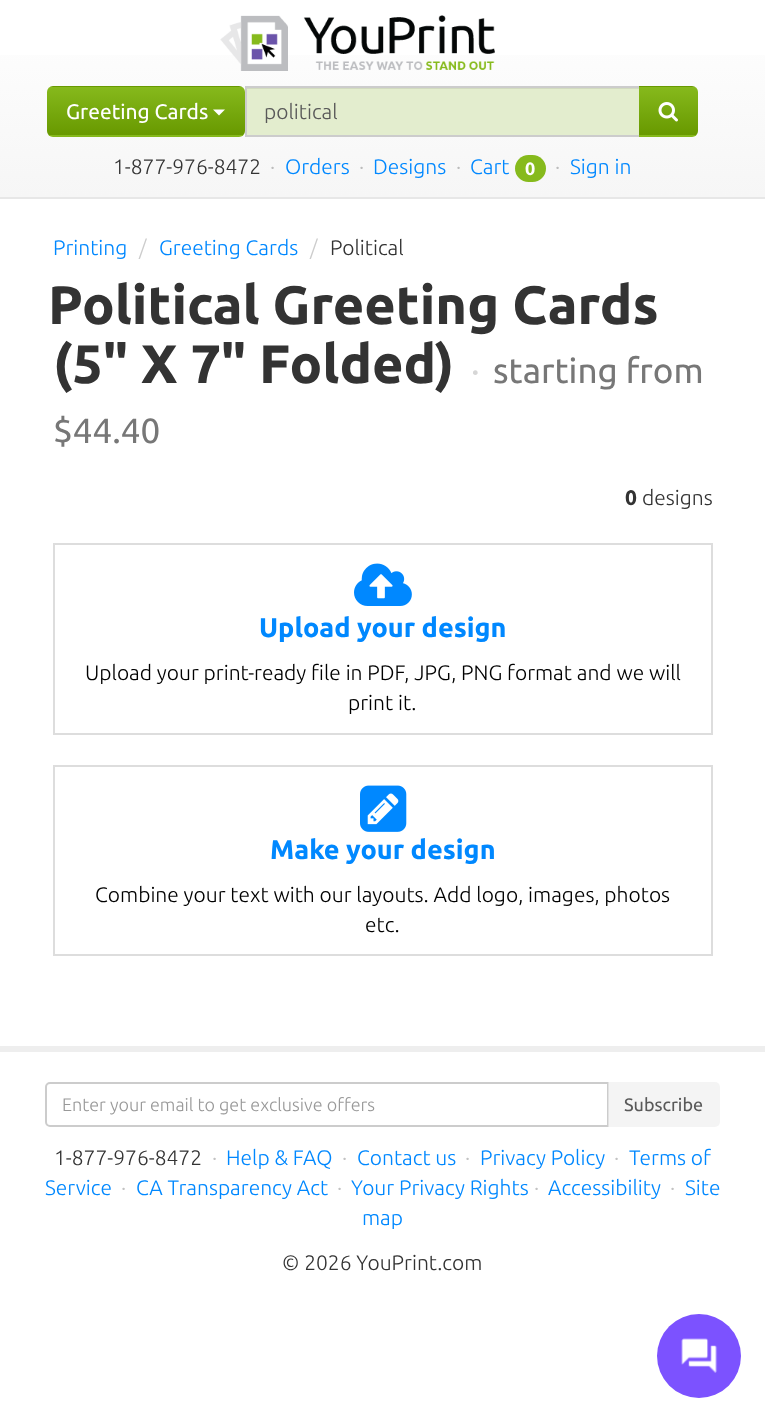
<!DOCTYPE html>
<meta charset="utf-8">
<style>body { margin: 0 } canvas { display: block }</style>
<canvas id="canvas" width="765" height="1421"></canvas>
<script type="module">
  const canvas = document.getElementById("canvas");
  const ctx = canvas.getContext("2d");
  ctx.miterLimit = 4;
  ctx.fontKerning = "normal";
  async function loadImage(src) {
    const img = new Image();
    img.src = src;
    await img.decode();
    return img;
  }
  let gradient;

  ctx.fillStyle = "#ffffff";
  ctx.fillRect(0, 0, 765, 1421);
  gradient = ctx.createLinearGradient(383, 0, 383, 197);
  gradient.addColorStop(0, "#ffffff");
  gradient.addColorStop(1, "#f6f6f6");
  ctx.fillStyle = gradient;
  ctx.fillRect(0, 55, 765, 142);
  ctx.fillStyle = "#e7e7e7";
  ctx.fillRect(0, 197, 765, 2);
  ctx.drawImage(await loadImage("img1.png"), 220, 15, 275, 56);
  ctx.save();
  ctx.beginPath();
  ctx.roundRect(47, 86, 198, 51, 6);
  ctx.clip();
  gradient = ctx.createLinearGradient(146, 39, 146, 87);
  gradient.addColorStop(0, "#86b91c");
  gradient.addColorStop(1, "#689900");
  ctx.fillStyle = gradient;
  ctx.fillRect(47, 86, 198, 1);
  gradient = ctx.createLinearGradient(146, 87, 146, 135);
  gradient.addColorStop(0, "#86b91c");
  gradient.addColorStop(1, "#689900");
  ctx.fillStyle = gradient;
  ctx.fillRect(47, 87, 198, 48);
  gradient = ctx.createLinearGradient(146, 135, 146, 183);
  gradient.addColorStop(0, "#86b91c");
  gradient.addColorStop(1, "#689900");
  ctx.fillStyle = gradient;
  ctx.fillRect(47, 135, 198, 2);
  ctx.restore();
  ctx.font = "21px Ubuntu";
  ctx.fillStyle = "#ffffff";
  ctx.fillText("Greeting Cards", 66, 119);
  ctx.beginPath();
  ctx.moveTo(213, 109.5);
  ctx.lineTo(225, 109.5);
  ctx.lineTo(219, 115.5);
  ctx.closePath();
  ctx.fill();
  ctx.fillStyle = "#e3edce";
  ctx.fillRect(247, 89, 392, 46);
  ctx.fillStyle = "#d2dbbf";
  ctx.fillRect(246, 88, 393, 1);
  ctx.strokeStyle = "#cccccc";
  ctx.lineWidth = 2;
  ctx.strokeRect(246, 87, 394, 49);
  ctx.font = "300 21px Ubuntu";
  ctx.fillStyle = "#595959";
  ctx.fillText("political", 264, 119);
  ctx.save();
  ctx.beginPath();
  ctx.roundRect(639, 86, 59, 51, [0, 6, 6, 0]);
  ctx.clip();
  gradient = ctx.createLinearGradient(668, 39, 668, 87);
  gradient.addColorStop(0, "#86b91c");
  gradient.addColorStop(1, "#689900");
  ctx.fillStyle = gradient;
  ctx.fillRect(639, 86, 59, 1);
  gradient = ctx.createLinearGradient(668, 87, 668, 135);
  gradient.addColorStop(0, "#86b91c");
  gradient.addColorStop(1, "#689900");
  ctx.fillStyle = gradient;
  ctx.fillRect(639, 87, 59, 48);
  gradient = ctx.createLinearGradient(668, 135, 668, 183);
  gradient.addColorStop(0, "#86b91c");
  gradient.addColorStop(1, "#689900");
  ctx.fillStyle = gradient;
  ctx.fillRect(639, 135, 59, 2);
  ctx.restore();
  ctx.drawImage(await loadImage("img2.png"), 658, 102, 20, 20);
  ctx.fillStyle = "#333333";
  ctx.fillText("1-877-976-8472", 113, 174);
  ctx.fillStyle = "#bcbcbc";
  ctx.fillText("·", 270, 174);
  ctx.fillStyle = "#0088ff";
  ctx.fillText("Orders", 285, 174);
  ctx.fillStyle = "#bcbcbc";
  ctx.fillText("·", 359, 174);
  ctx.fillStyle = "#0088ff";
  ctx.fillText("Designs", 373, 174);
  ctx.fillStyle = "#bcbcbc";
  ctx.fillText("·", 456, 174);
  ctx.fillStyle = "#0088ff";
  ctx.fillText("Cart", 470, 174);
  ctx.fillStyle = "#86ba1c";
  ctx.beginPath();
  ctx.roundRect(515, 155, 31, 27, 13.5);
  ctx.fill();
  ctx.font = "bold 18px Ubuntu";
  ctx.fillStyle = "#ffffff";
  ctx.fillText("0", 525, 175);
  ctx.font = "300 21px Ubuntu";
  ctx.fillStyle = "#bcbcbc";
  ctx.fillText("·", 555, 174);
  ctx.fillStyle = "#0088ff";
  ctx.fillText("Sign in", 570, 174);
  ctx.fillText("Printing", 53, 255);
  ctx.fillStyle = "#cccccc";
  ctx.fillText("/", 139, 255);
  ctx.fillStyle = "#0088ff";
  ctx.fillText("Greeting Cards", 159, 255);
  ctx.fillStyle = "#cccccc";
  ctx.fillText("/", 310, 255);
  ctx.fillStyle = "#333333";
  ctx.fillText("Political", 330, 255);
  ctx.font = "bold 54px Ubuntu";
  ctx.fillText("Political Greeting Cards", 48, 324);
  ctx.fillText("(5\" X 7\" Folded)", 53, 383);
  ctx.font = "35px Ubuntu";
  ctx.fillStyle = "#d6d6d6";
  ctx.fillText("·", 471, 383);
  ctx.fillStyle = "#777777";
  ctx.fillText("starting from", 493, 383);
  ctx.fillText("$44.40", 53, 443);
  ctx.font = "bold 21px Ubuntu";
  ctx.fillStyle = "#333333";
  ctx.fillText("0", 625, 505);
  ctx.font = "300 21px Ubuntu";
  ctx.fillText("designs", 642, 505);
  ctx.strokeStyle = "#dddddd";
  ctx.strokeRect(54, 544, 658, 190);
  ctx.drawImage(await loadImage("img3.png"), 354, 563, 58, 43);
  ctx.font = "bold 27px Ubuntu";
  ctx.fillStyle = "#0088ff";
  ctx.fillText("Upload your design", 259, 637);
  ctx.font = "300 21px Ubuntu";
  ctx.fillStyle = "#000000";
  ctx.fillText("Upload your print-ready file in PDF, JPG, PNG format and we will", 85, 680);
  ctx.fillText("print it.", 348, 710);
  ctx.strokeRect(54, 766, 658, 189);
  ctx.drawImage(await loadImage("img4.png"), 360, 785, 47, 47);
  ctx.font = "bold 27px Ubuntu";
  ctx.fillStyle = "#0088ff";
  ctx.fillText("Make your design", 270, 859);
  ctx.font = "300 21px Ubuntu";
  ctx.fillStyle = "#000000";
  ctx.fillText("Combine your text with our layouts. Add logo, images, photos", 95, 902);
  ctx.fillText("etc.", 365, 932);
  ctx.fillStyle = "#eeeeee";
  ctx.fillRect(0, 1046, 765, 6);
  ctx.beginPath();
  ctx.roundRect(46, 1083, 562, 43, [4, 0, 0, 4]);
  ctx.strokeStyle = "#cccccc";
  ctx.stroke();
  ctx.font = "300 18px Ubuntu";
  ctx.fillStyle = "#999999";
  ctx.fillText("Enter your email to get exclusive offers", 62, 1111);
  ctx.fillStyle = "rgba(238, 238, 238, 0.65)";
  ctx.beginPath();
  ctx.roundRect(608, 1082, 112, 45, [0, 5, 5, 0]);
  ctx.fill();
  ctx.font = "18px Ubuntu";
  ctx.fillStyle = "#595959";
  ctx.fillText("Subscribe", 624, 1111);
  ctx.font = "300 21px Ubuntu";
  ctx.fillStyle = "#333333";
  ctx.fillText("1-877-976-8472", 54, 1165);
  ctx.fillStyle = "#c2c2c2";
  ctx.fillText("·", 212, 1165);
  ctx.fillStyle = "#0088ff";
  ctx.fillText("Help & FAQ", 226, 1165);
  ctx.fillStyle = "#c2c2c2";
  ctx.fillText("·", 342, 1165);
  ctx.fillStyle = "#0088ff";
  ctx.fillText("Contact us", 357, 1165);
  ctx.fillStyle = "#c2c2c2";
  ctx.fillText("·", 465, 1165);
  ctx.fillStyle = "#0088ff";
  ctx.fillText("Privacy Policy", 480, 1165);
  ctx.fillStyle = "#c2c2c2";
  ctx.fillText("·", 614, 1165);
  ctx.fillStyle = "#0088ff";
  ctx.fillText("Terms of", 629, 1165);
  ctx.fillText("Service", 45, 1195);
  ctx.fillStyle = "#c2c2c2";
  ctx.fillText("·", 121, 1195);
  ctx.fillStyle = "#0088ff";
  ctx.fillText("CA Transparency Act", 136, 1195);
  ctx.fillStyle = "#c2c2c2";
  ctx.fillText("·", 337, 1195);
  ctx.fillStyle = "#0088ff";
  ctx.fillText("Your Privacy Rights", 351, 1195);
  ctx.fillStyle = "#c2c2c2";
  ctx.fillText("·", 534, 1195);
  ctx.fillStyle = "#0088ff";
  ctx.fillText("Accessibility", 548, 1195);
  ctx.fillStyle = "#c2c2c2";
  ctx.fillText("·", 670, 1195);
  ctx.fillStyle = "#0088ff";
  ctx.fillText("Site", 685, 1195);
  ctx.fillText("map", 362, 1225);
  ctx.fillStyle = "#333333";
  ctx.fillText("© 2026 YouPrint.com", 282, 1270);
  ctx.fillStyle = "#7c52ff";
  ctx.beginPath();
  ctx.arc(699, 1356, 42, 0, Math.PI * 2);
  ctx.fill();
  ctx.drawImage(await loadImage("img5.png"), 681, 1338, 37, 35);
</script>
